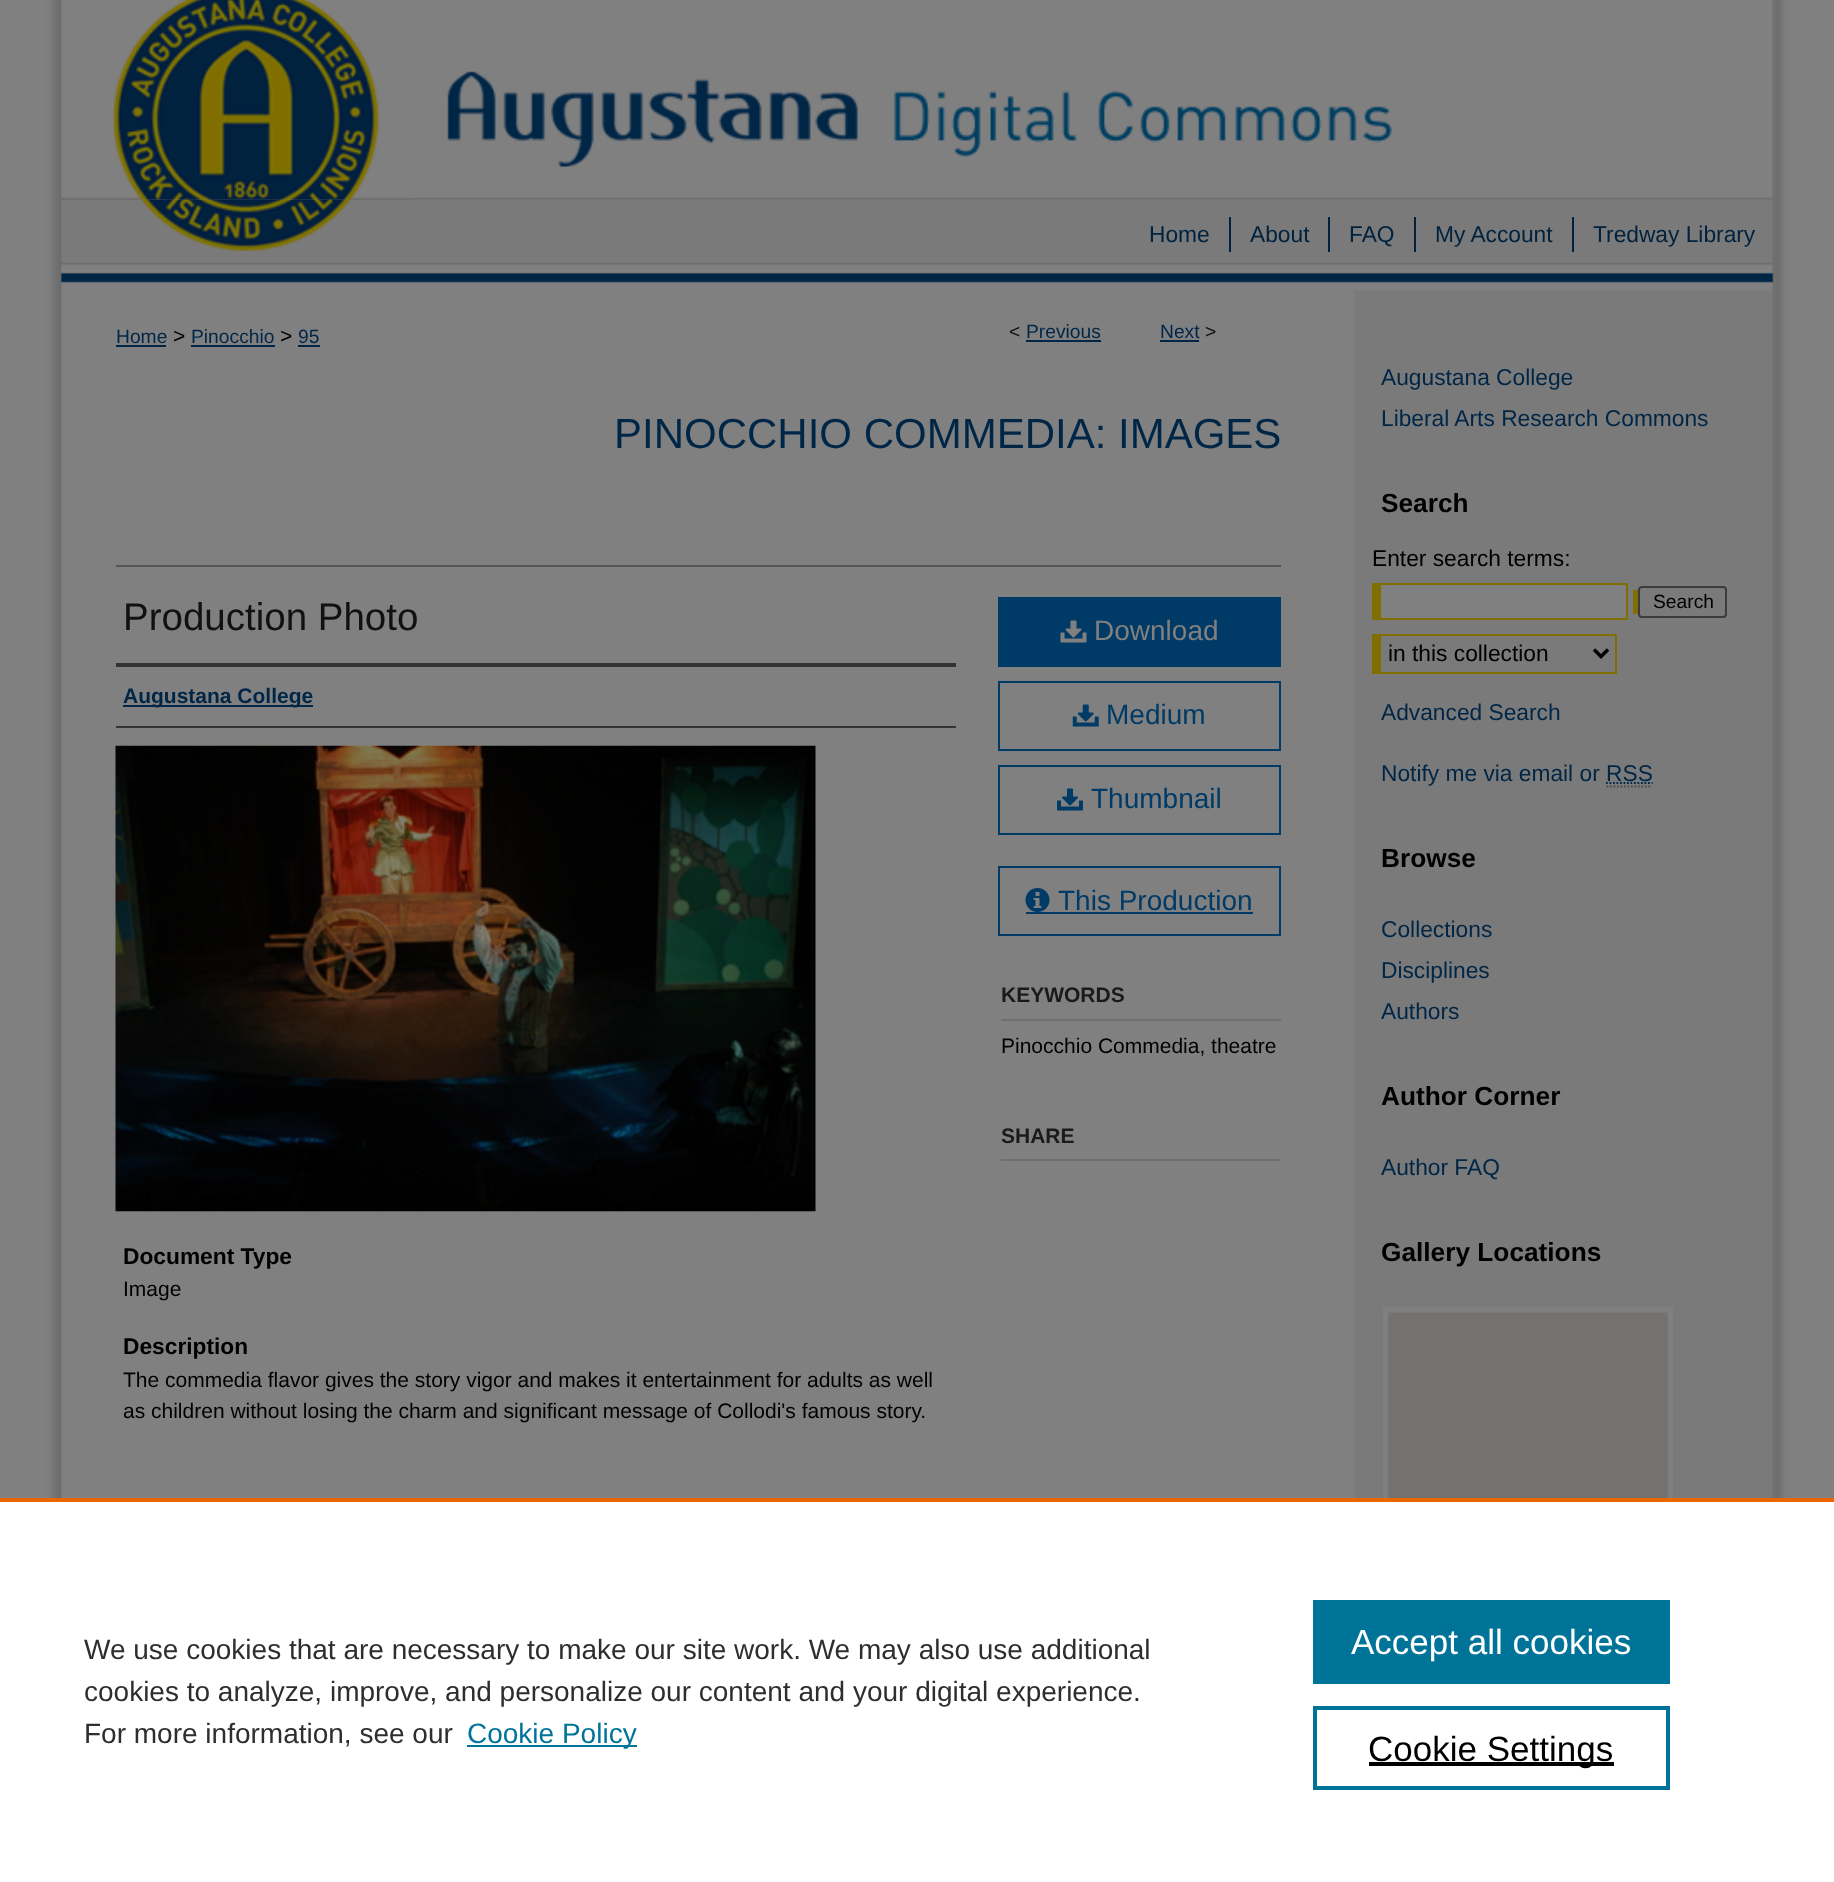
<!DOCTYPE html>
<meta charset="utf-8">
<style>body { margin: 0 } canvas { display: block }</style>
<canvas id="canvas" width="1834" height="1882"></canvas>
<script type="module">
  const canvas = document.getElementById("canvas");
  const ctx = canvas.getContext("2d");
  ctx.miterLimit = 4;
  ctx.fontKerning = "normal";
  async function loadImage(src) {
    const img = new Image();
    img.src = src;
    await img.decode();
    return img;
  }

  ctx.fillStyle = "#808080";
  ctx.fillRect(0, 0, 1834, 1882);
  ctx.fillStyle = "#6d6d6d";
  ctx.filter = "blur(3.5px)";
  ctx.beginPath();
  ctx.rect(53, -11, 1729, 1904);
  ctx.fill();
  ctx.filter = "none";
  ctx.fillStyle = "#808080";
  ctx.fillRect(60, 0, 1715, 200);
  ctx.drawImage(await loadImage("img2.png"), 409, 0, 1366, 200);
  ctx.fillStyle = "#7a7a7a";
  ctx.fillRect(60, 200, 1715, 91);
  ctx.drawImage(await loadImage("img3.png"), 59, 199, 1716, 92);
  ctx.drawImage(await loadImage("img1.png"), 59, 0, 351, 200);
  ctx.fillStyle = "#00223e";
  ctx.fillRect(1229, 217, 2, 35);
  ctx.font = "22.75px Liberation Sans";
  ctx.fillText("Home", 1149, 242);
  ctx.fillRect(1328, 217, 2, 35);
  ctx.fillText("About", 1250, 242);
  ctx.fillRect(1414, 217, 2, 35);
  ctx.fillText("FAQ", 1349, 242);
  ctx.fillRect(1572, 217, 2, 35);
  ctx.fillText("My Account", 1435, 242);
  ctx.fillText("Tredway Library", 1593, 242);
  ctx.fillStyle = "#808080";
  ctx.fillRect(1774, 291, 1, 1207);
  ctx.drawImage(await loadImage("img4.png"), 59, 291, 1716, 1207);
  ctx.font = "19.25px Liberation Sans";
  ctx.fillStyle = "#002647";
  ctx.fillText("Home", 116, 343);
  ctx.fillRect(116, 345, 50, 2);
  ctx.font = "21px Liberation Sans";
  ctx.fillStyle = "#000000";
  ctx.fillText(">", 173, 343);
  ctx.font = "19.25px Liberation Sans";
  ctx.fillStyle = "#002647";
  ctx.fillText("Pinocchio", 191, 343);
  ctx.fillRect(191, 345, 84, 2);
  ctx.font = "21px Liberation Sans";
  ctx.fillStyle = "#000000";
  ctx.fillText(">", 280, 343);
  ctx.font = "19.25px Liberation Sans";
  ctx.fillStyle = "#002647";
  ctx.fillText("95", 298, 343);
  ctx.fillRect(298, 345, 22, 2);
  ctx.fillStyle = "#111111";
  ctx.fillText("<", 1009, 338);
  ctx.fillStyle = "#002647";
  ctx.fillText("Previous", 1026, 338);
  ctx.fillRect(1026, 340, 75, 2);
  ctx.fillText("Next", 1160, 338);
  ctx.fillRect(1160, 340, 39, 2);
  ctx.fillStyle = "#111111";
  ctx.fillText(">", 1205, 338);
  ctx.font = "42px Liberation Sans";
  ctx.fillStyle = "#002647";
  ctx.fillText("PINOCCHIO COMMEDIA: IMAGES", 614, 448);
  ctx.fillStyle = "#555555";
  ctx.fillRect(116, 565, 1165, 2);
  ctx.font = "38.5px Liberation Sans";
  ctx.fillStyle = "#111111";
  ctx.fillText("Production Photo", 123, 630);
  ctx.fillStyle = "#333333";
  ctx.fillRect(116, 663, 840, 4);
  ctx.fillRect(116, 726, 840, 2);
  ctx.fillStyle = "#002647";
  ctx.fillRect(123, 705, 190, 2);
  ctx.font = "bold 21px Liberation Sans";
  ctx.fillText("Augustana College", 123, 703);
  ctx.drawImage(await loadImage("img5.png"), 115, 745, 701, 467);
  ctx.font = "bold 22.75px Liberation Sans";
  ctx.fillStyle = "#000000";
  ctx.fillText("Document Type", 123, 1264);
  ctx.font = "21px Liberation Sans";
  ctx.fillText("Image", 123, 1296);
  ctx.font = "bold 22.75px Liberation Sans";
  ctx.fillText("Description", 123, 1354);
  ctx.font = "21px Liberation Sans";
  ctx.fillText("The commedia flavor gives the story vigor and makes it entertainment for adults as well", 123, 1387);
  ctx.fillText("as children without losing the charm and significant message of Collodi's famous story.", 123, 1418);
  ctx.fillStyle = "#003a66";
  ctx.fillRect(998, 597, 283, 70);
  ctx.drawImage(await loadImage("img6.png"), 1060, 620, 27, 23);
  ctx.font = "28px Liberation Sans";
  ctx.fillStyle = "#808080";
  ctx.fillText("Download", 1094, 640);
  ctx.strokeStyle = "#003a66";
  ctx.lineWidth = 2;
  ctx.strokeRect(999, 682, 281, 68);
  ctx.drawImage(await loadImage("img7.png"), 1072, 704, 27, 23);
  ctx.fillStyle = "#003a66";
  ctx.fillText("Medium", 1106, 724);
  ctx.strokeRect(999, 766, 281, 68);
  ctx.drawImage(await loadImage("img8.png"), 1057, 788, 26, 23);
  ctx.fillText("Thumbnail", 1091, 808);
  ctx.strokeRect(999, 867, 281, 68);
  ctx.fillRect(1026, 912, 227, 2);
  ctx.drawImage(await loadImage("img9.png"), 1025, 888, 25, 24);
  ctx.fillText("This Production", 1058, 910);
  ctx.fillStyle = "#6f6f6f";
  ctx.fillRect(1001, 1019, 280, 2);
  ctx.font = "bold 21px Liberation Sans";
  ctx.fillStyle = "#1a1a1a";
  ctx.fillText("KEYWORDS", 1001, 1002);
  ctx.font = "21px Liberation Sans";
  ctx.fillStyle = "#000000";
  ctx.fillText("Pinocchio Commedia, theatre", 1001, 1053);
  ctx.fillStyle = "#6f6f6f";
  ctx.fillRect(1001, 1159, 280, 2);
  ctx.font = "bold 21px Liberation Sans";
  ctx.fillStyle = "#1a1a1a";
  ctx.fillText("SHARE", 1001, 1143);
  ctx.font = "22.75px Liberation Sans";
  ctx.fillStyle = "#002647";
  ctx.fillText("Augustana College", 1381, 385);
  ctx.fillText("Liberal Arts Research Commons", 1381, 426);
  ctx.font = "bold 26.25px Liberation Sans";
  ctx.fillStyle = "#000000";
  ctx.fillText("Search", 1381, 512);
  ctx.font = "22.75px Liberation Sans";
  ctx.fillText("Enter search terms:", 1372, 566);
  ctx.fillStyle = "#806f00";
  ctx.fillRect(1372, 583, 256, 37);
  ctx.fillRect(1633, 590, 5, 24);
  ctx.fillStyle = "#808080";
  ctx.fillRect(1381, 585, 245, 33);
  ctx.beginPath();
  ctx.roundRect(1639, 587, 87, 30, 3);
  ctx.strokeStyle = "#3b3b3b";
  ctx.stroke();
  ctx.font = "19.25px Liberation Sans";
  ctx.fillStyle = "#000000";
  ctx.fillText("Search", 1653, 608);
  ctx.fillStyle = "#806f00";
  ctx.fillRect(1381, 634, 236, 2);
  ctx.fillRect(1615, 634, 2, 40);
  ctx.fillRect(1381, 672, 236, 2);
  ctx.fillRect(1372, 634, 9, 40);
  ctx.beginPath();
  ctx.moveTo(1594, 649.5);
  ctx.lineTo(1601, 656.5);
  ctx.lineTo(1608, 649.5);
  ctx.strokeStyle = "#000000";
  ctx.lineWidth = 3.5;
  ctx.stroke();
  ctx.font = "22.75px Liberation Sans";
  ctx.fillStyle = "#000000";
  ctx.fillText("in this collection", 1388, 661);
  ctx.fillStyle = "#002647";
  ctx.fillText("Advanced Search", 1381, 720);
  ctx.fillText("Notify me via email or RSS", 1381, 781);
  ctx.beginPath();
  ctx.moveTo(1606, 783);
  ctx.lineTo(1652.5, 783);
  ctx.strokeStyle = "#002647";
  ctx.lineWidth = 1.8;
  ctx.setLineDash([1.75, 1.75]);
  ctx.stroke();
  ctx.beginPath();
  ctx.moveTo(1606.5, 786.5);
  ctx.lineTo(1652, 786.5);
  ctx.strokeStyle = "#4d4d4d";
  ctx.stroke();
  ctx.font = "bold 26.25px Liberation Sans";
  ctx.fillStyle = "#000000";
  ctx.fillText("Browse", 1381, 867);
  ctx.font = "22.75px Liberation Sans";
  ctx.fillStyle = "#002647";
  ctx.fillText("Collections", 1381, 937);
  ctx.fillText("Disciplines", 1381, 978);
  ctx.fillText("Authors", 1381, 1019);
  ctx.font = "bold 26.25px Liberation Sans";
  ctx.fillStyle = "#000000";
  ctx.fillText("Author Corner", 1381, 1105);
  ctx.font = "22.75px Liberation Sans";
  ctx.fillStyle = "#002647";
  ctx.fillText("Author FAQ", 1381, 1175);
  ctx.font = "bold 26.25px Liberation Sans";
  ctx.fillStyle = "#000000";
  ctx.fillText("Gallery Locations", 1381, 1261);
  ctx.strokeStyle = "#808080";
  ctx.lineWidth = 5;
  ctx.setLineDash([]);
  ctx.strokeRect(1385.5, 1309.5, 285, 286);
  ctx.fillStyle = "#737270";
  ctx.fillRect(1388, 1313, 280, 185);
  ctx.fillStyle = "#ffffff";
  ctx.fillRect(0, 1502, 1834, 380);
  ctx.fillStyle = "#eb6500";
  ctx.fillRect(0, 1498, 1834, 4);
  ctx.font = "28px Liberation Sans";
  ctx.fillStyle = "#2e2e2e";
  ctx.fillText("We use cookies that are necessary to make our site work. We may also use additional", 84, 1659);
  ctx.fillText("cookies to analyze, improve, and personalize our content and your digital experience.", 84, 1701);
  ctx.fillText("For more information, see our", 84, 1743);
  ctx.fillStyle = "#007398";
  ctx.fillRect(467, 1745, 170, 2);
  ctx.fillText("Cookie Policy", 467, 1743);
  ctx.fillRect(1313, 1600, 357, 84);
  ctx.font = "35px Liberation Sans";
  ctx.fillStyle = "#ffffff";
  ctx.fillText("Accept all cookies", 1351, 1654);
  ctx.strokeStyle = "#007398";
  ctx.lineWidth = 4;
  ctx.strokeRect(1315, 1708, 353, 80);
  ctx.fillStyle = "#000000";
  ctx.fillRect(1369, 1762, 245, 4);
  ctx.fillText("Cookie Settings", 1368, 1761);
</script>
